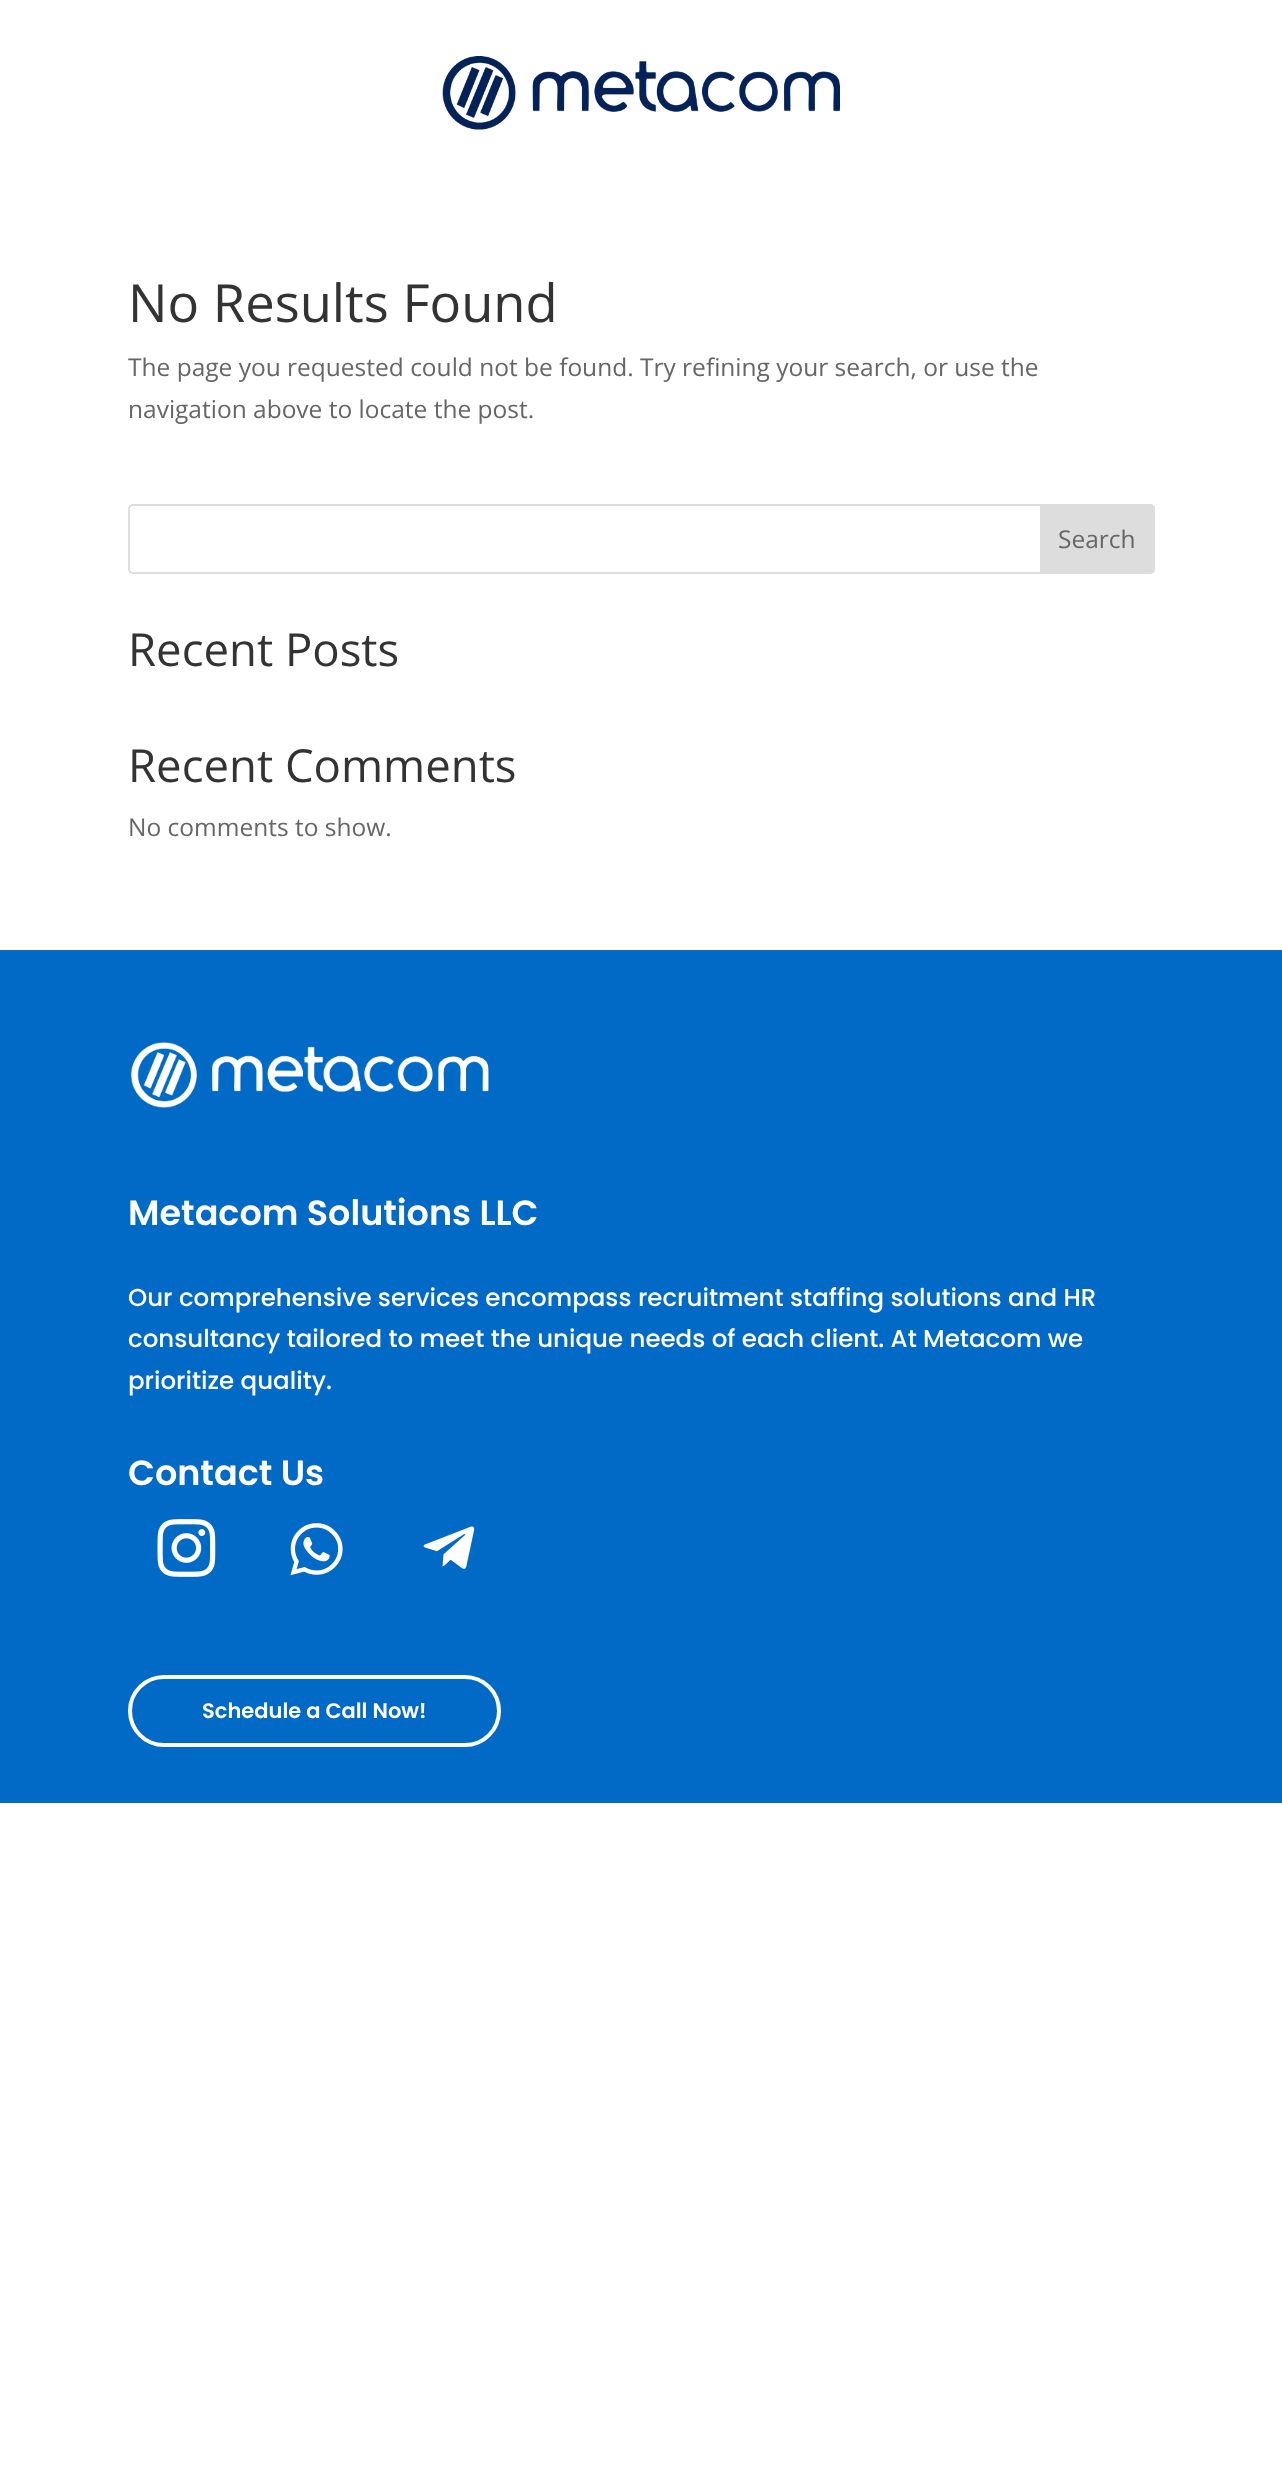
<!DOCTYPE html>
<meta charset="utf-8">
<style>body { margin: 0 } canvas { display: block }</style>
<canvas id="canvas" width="1282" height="2466"></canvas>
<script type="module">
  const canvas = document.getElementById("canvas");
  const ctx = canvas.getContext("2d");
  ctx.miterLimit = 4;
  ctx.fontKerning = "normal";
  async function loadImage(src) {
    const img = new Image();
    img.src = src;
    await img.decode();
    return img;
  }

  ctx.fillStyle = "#ffffff";
  ctx.fillRect(0, 0, 1282, 2466);
  ctx.drawImage(await loadImage("img1.png"), 442, 56, 398, 74);
  ctx.font = "52.5px Open Sans";
  ctx.fillStyle = "#333333";
  ctx.fillText("No Results Found", 128, 322);
  ctx.font = "24.5px Open Sans";
  ctx.fillStyle = "#666666";
  ctx.fillText("The page you requested could not be found. Try refining your search, or use the", 128, 376);
  ctx.fillText("navigation above to locate the post.", 128, 418);
  ctx.beginPath();
  ctx.roundRect(129, 505, 1025, 68, 4);
  ctx.strokeStyle = "#dddddd";
  ctx.lineWidth = 2;
  ctx.stroke();
  ctx.fillStyle = "#dddddd";
  ctx.beginPath();
  ctx.roundRect(1041, 505, 113, 68, [0, 4, 4, 0]);
  ctx.fill();
  ctx.stroke();
  ctx.fillStyle = "#666666";
  ctx.fillText("Search", 1058, 548);
  ctx.font = "45.5px Open Sans";
  ctx.fillStyle = "#333333";
  ctx.fillText("Recent Posts", 128, 666);
  ctx.fillText("Recent Comments", 128, 782);
  ctx.font = "24.5px Open Sans";
  ctx.fillStyle = "#666666";
  ctx.fillText("No comments to show.", 128, 836);
  ctx.fillStyle = "#0169c6";
  ctx.fillRect(0, 950, 1282, 853);
  ctx.drawImage(await loadImage("img2.png"), 130, 1042, 359, 66);
  ctx.font = "600 35px Poppins";
  ctx.fillStyle = "#ffffff";
  ctx.fillText("Metacom Solutions LLC", 128, 1225);
  ctx.font = "500 24.5px Poppins";
  ctx.fillText("Our comprehensive services encompass recruitment staffing solutions and HR", 128, 1306);
  ctx.fillText("consultancy tailored to meet the unique needs of each client. At Metacom we", 128, 1347);
  ctx.fillText("prioritize quality.", 128, 1389);
  ctx.font = "600 35px Poppins";
  ctx.fillText("Contact Us", 128, 1485);
  ctx.drawImage(await loadImage("img3.png"), 157, 1519, 59, 58);
  ctx.drawImage(await loadImage("img4.png"), 290, 1523, 53, 53);
  ctx.drawImage(await loadImage("img5.png"), 423, 1526, 52, 43);
  ctx.beginPath();
  ctx.roundRect(130, 1677, 369, 68, 34);
  ctx.strokeStyle = "#ffffff";
  ctx.lineWidth = 4;
  ctx.stroke();
  ctx.font = "600 21px Poppins";
  ctx.fillText("Schedule a Call Now!", 202, 1718);
</script>
